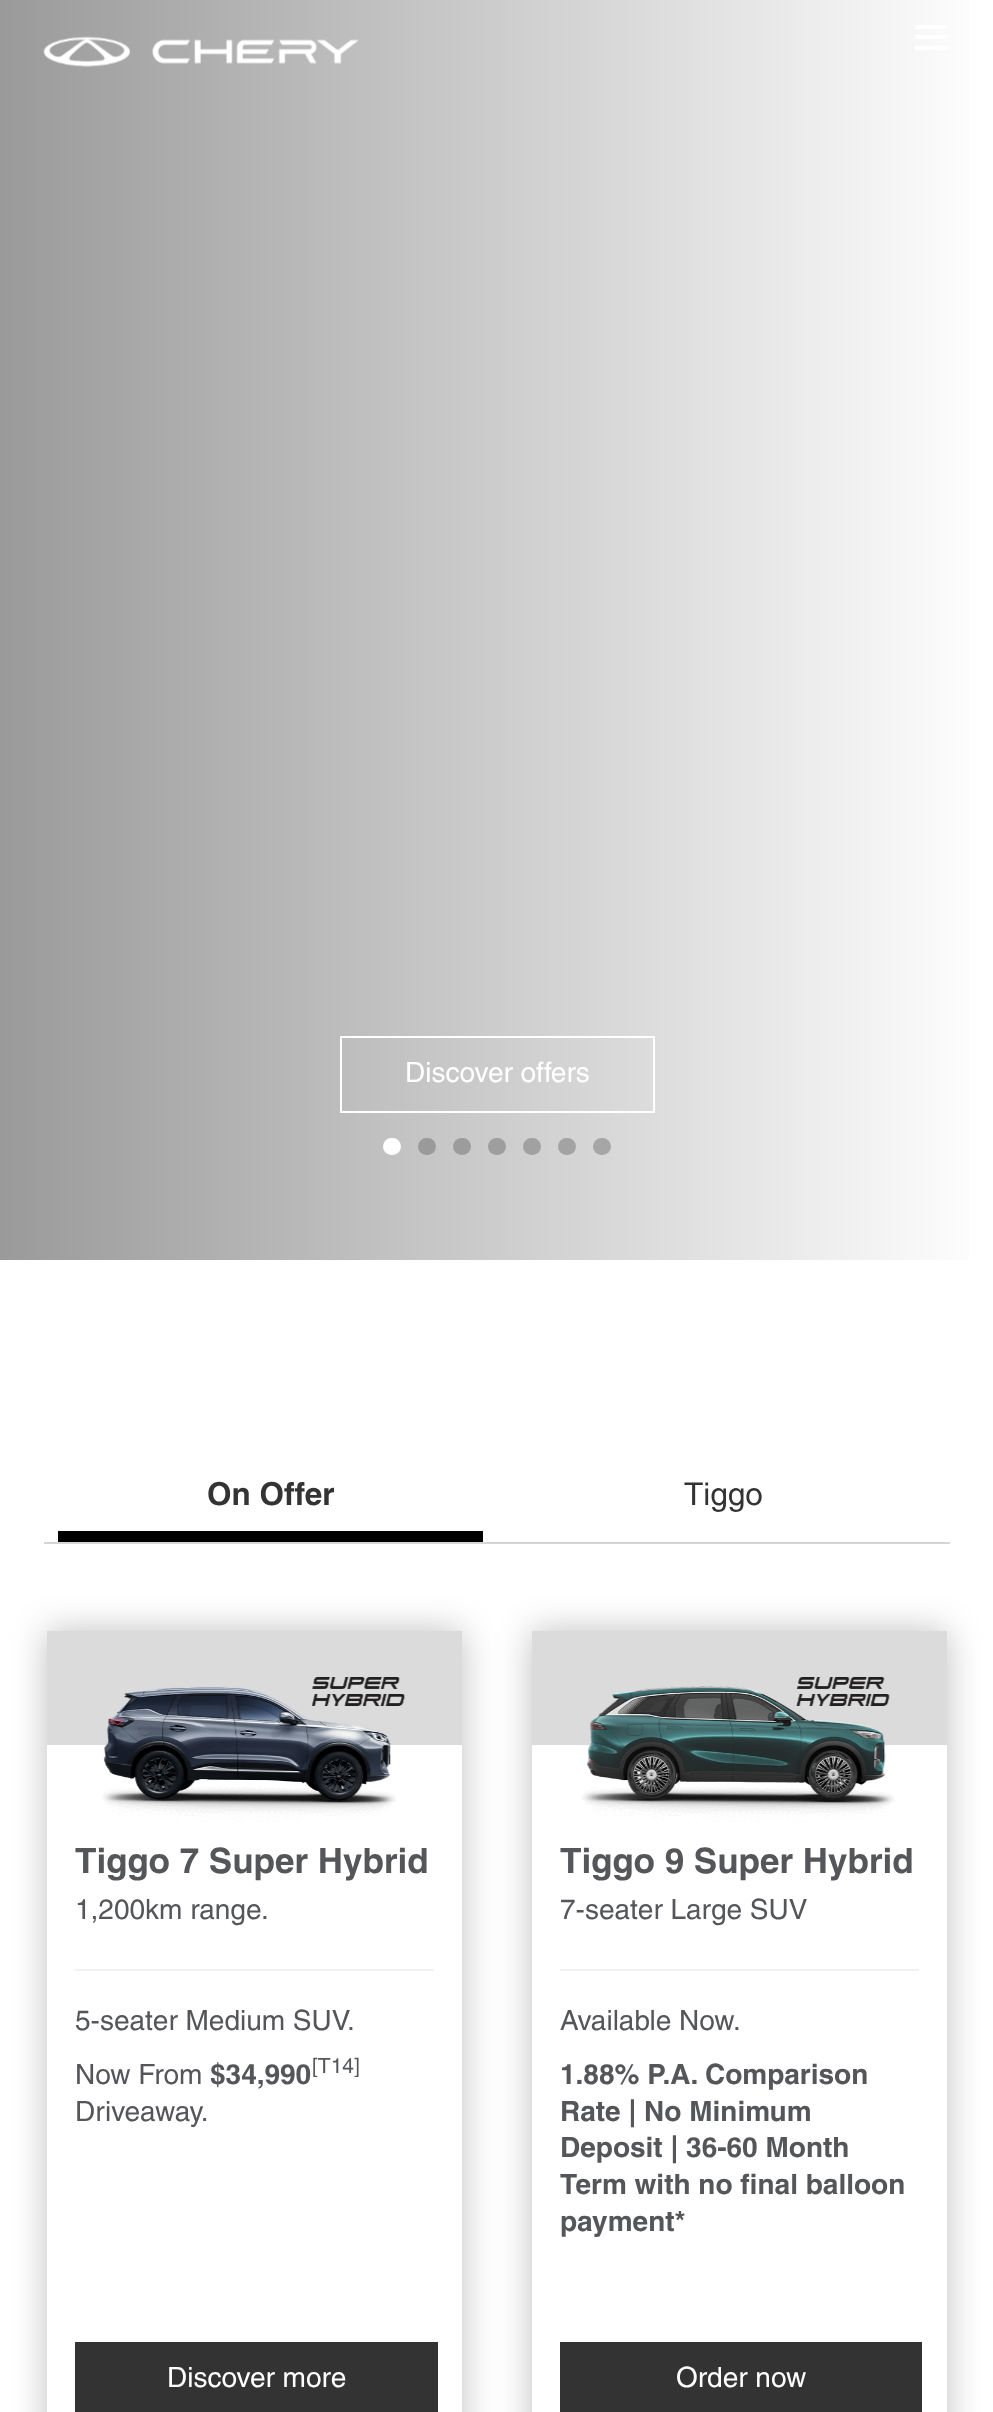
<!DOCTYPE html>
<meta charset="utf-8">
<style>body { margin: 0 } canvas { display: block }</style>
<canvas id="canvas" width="993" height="2412"></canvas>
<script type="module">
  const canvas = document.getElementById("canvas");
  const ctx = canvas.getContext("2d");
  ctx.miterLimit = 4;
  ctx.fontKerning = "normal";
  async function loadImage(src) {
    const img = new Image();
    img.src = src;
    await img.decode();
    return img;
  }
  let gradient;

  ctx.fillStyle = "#ffffff";
  ctx.fillRect(0, 0, 993, 2412);
  gradient = ctx.createLinearGradient(0, 613, 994, 613);
  gradient.addColorStop(0, "#9a9a9a");
  gradient.addColorStop(1, "#ffffff");
  ctx.fillStyle = gradient;
  ctx.fillRect(0, 0, 969, 1260);
  ctx.drawImage(await loadImage("img1.png"), 43, 36, 316, 31);
  ctx.fillStyle = "#ffffff";
  ctx.fillRect(915, 25, 32, 4);
  ctx.fillRect(915, 35, 32, 4);
  ctx.fillRect(915, 46, 32, 4);
  ctx.strokeStyle = "#ffffff";
  ctx.lineWidth = 2;
  ctx.strokeRect(341, 1037, 313, 75);
  ctx.font = "28px Helvetica";
  ctx.fillText("Discover offers", 405, 1082);
  ctx.beginPath();
  ctx.roundRect(383, 1138, 18, 17, 8.5);
  ctx.fill();
  ctx.fillStyle = "#9a9a9a";
  ctx.beginPath();
  ctx.roundRect(418, 1138, 18, 17, 8.5);
  ctx.fill();
  ctx.fillStyle = "#9c9c9c";
  ctx.beginPath();
  ctx.roundRect(453, 1138, 18, 17, 8.5);
  ctx.fill();
  ctx.fillStyle = "#9e9e9e";
  ctx.beginPath();
  ctx.roundRect(488, 1138, 18, 17, 8.5);
  ctx.fill();
  ctx.fillStyle = "#a1a1a1";
  ctx.beginPath();
  ctx.roundRect(523, 1138, 18, 17, 8.5);
  ctx.fill();
  ctx.fillStyle = "#a3a3a3";
  ctx.beginPath();
  ctx.roundRect(558, 1138, 18, 17, 8.5);
  ctx.fill();
  ctx.fillStyle = "#a6a6a6";
  ctx.beginPath();
  ctx.roundRect(593, 1138, 18, 17, 8.5);
  ctx.fill();
  ctx.fillStyle = "#d5d5d5";
  ctx.fillRect(44, 1542, 906, 2);
  ctx.fillStyle = "#000000";
  ctx.fillRect(58, 1531, 425, 11);
  ctx.font = "bold 31.5px Helvetica";
  ctx.fillStyle = "#333333";
  ctx.fillText("On Offer", 207, 1505);
  ctx.font = "31.5px Helvetica";
  ctx.fillText("Tiggo", 684, 1505);
  ctx.fillStyle = "#dbdbdb";
  ctx.fillRect(47, 1631, 415, 114);
  ctx.save();
  ctx.beginPath();
  ctx.moveTo(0, 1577);
  ctx.lineTo(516, 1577);
  ctx.lineTo(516, 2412);
  ctx.lineTo(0, 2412);
  ctx.closePath();
  ctx.moveTo(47, 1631);
  ctx.lineTo(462, 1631);
  ctx.lineTo(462, 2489);
  ctx.lineTo(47, 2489);
  ctx.closePath();
  ctx.clip("evenodd");
  ctx.fillStyle = "rgba(0, 0, 0, 0.25)";
  ctx.filter = "blur(17.5px)";
  ctx.beginPath();
  ctx.rect(47, 1631, 415, 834);
  ctx.fill();
  ctx.filter = "none";
  ctx.restore();
  ctx.drawImage(await loadImage("img2.png"), 102, 1677, 303, 145);
  ctx.font = "bold 35px Helvetica";
  ctx.fillStyle = "#545659";
  ctx.fillText("Tiggo 7 Super Hybrid", 75, 1873);
  ctx.font = "28px Helvetica";
  ctx.fillText("1,200km range.", 75, 1919);
  ctx.fillStyle = "#f1f1f1";
  ctx.fillRect(75, 1969, 359, 2);
  ctx.fillStyle = "#545659";
  ctx.fillText("5-seater Medium SUV.", 75, 2030);
  ctx.fillText("Now From", 75, 2084);
  ctx.font = "bold 28px Helvetica";
  ctx.fillText("$34,990", 210, 2084);
  ctx.font = "21px Helvetica";
  ctx.fillText("[T14]", 312, 2073);
  ctx.font = "28px Helvetica";
  ctx.fillText("Driveaway.", 75, 2121);
  ctx.fillStyle = "#333333";
  ctx.fillRect(75, 2342, 363, 70);
  ctx.fillStyle = "#ffffff";
  ctx.fillText("Discover more", 167, 2387);
  ctx.fillStyle = "#dbdbdb";
  ctx.fillRect(532, 1631, 415, 114);
  ctx.save();
  ctx.beginPath();
  ctx.moveTo(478, 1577);
  ctx.lineTo(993, 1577);
  ctx.lineTo(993, 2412);
  ctx.lineTo(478, 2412);
  ctx.closePath();
  ctx.moveTo(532, 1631);
  ctx.lineTo(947, 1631);
  ctx.lineTo(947, 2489);
  ctx.lineTo(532, 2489);
  ctx.closePath();
  ctx.clip("evenodd");
  ctx.fillStyle = "rgba(0, 0, 0, 0.25)";
  ctx.filter = "blur(17.5px)";
  ctx.beginPath();
  ctx.rect(532, 1631, 415, 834);
  ctx.fill();
  ctx.filter = "none";
  ctx.restore();
  ctx.drawImage(await loadImage("img3.png"), 580, 1677, 315, 145);
  ctx.font = "bold 35px Helvetica";
  ctx.fillStyle = "#545659";
  ctx.fillText("Tiggo 9 Super Hybrid", 560, 1873);
  ctx.font = "28px Helvetica";
  ctx.fillText("7-seater Large SUV", 560, 1919);
  ctx.fillStyle = "#f1f1f1";
  ctx.fillRect(560, 1969, 359, 2);
  ctx.fillStyle = "#545659";
  ctx.fillText("Available Now.", 560, 2030);
  ctx.font = "bold 28px Helvetica";
  ctx.fillText("1.88% P.A. Comparison", 560, 2084);
  ctx.fillText("Rate | No Minimum", 560, 2121);
  ctx.fillText("Deposit | 36-60 Month", 560, 2157);
  ctx.fillText("Term with no final balloon", 560, 2194);
  ctx.fillText("payment*", 560, 2231);
  ctx.fillStyle = "#333333";
  ctx.fillRect(560, 2342, 362, 70);
  ctx.font = "28px Helvetica";
  ctx.fillStyle = "#ffffff";
  ctx.fillText("Order now", 676, 2387);
</script>
